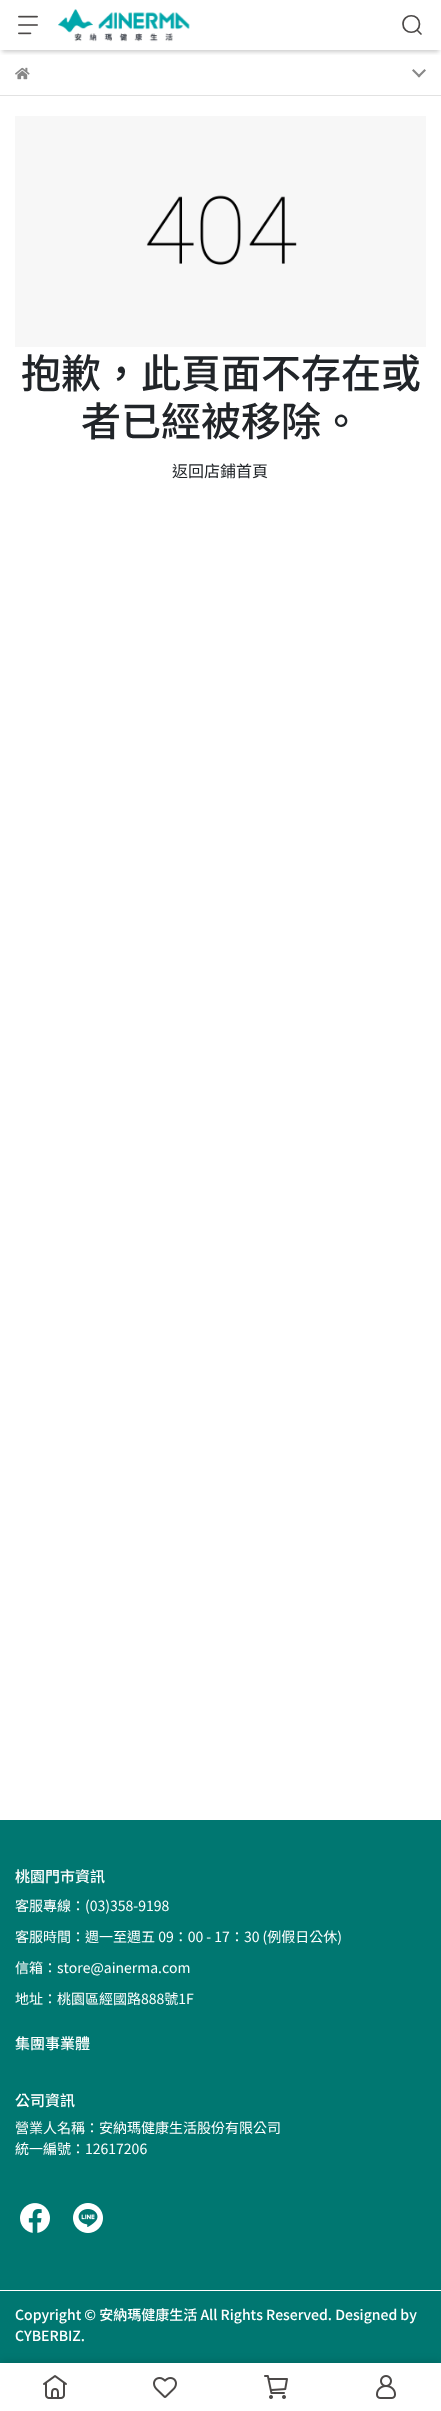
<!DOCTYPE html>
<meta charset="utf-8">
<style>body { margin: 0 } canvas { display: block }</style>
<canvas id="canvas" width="441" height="2411"></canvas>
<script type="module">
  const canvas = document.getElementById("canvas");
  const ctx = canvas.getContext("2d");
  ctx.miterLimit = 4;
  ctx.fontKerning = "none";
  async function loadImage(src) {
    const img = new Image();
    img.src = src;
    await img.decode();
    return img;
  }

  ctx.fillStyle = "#ffffff";
  ctx.fillRect(0, 0, 441, 2411);
  ctx.save();
  ctx.beginPath();
  ctx.rect(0, 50, 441, 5);
  ctx.clip();
  ctx.fillStyle = "rgba(0, 0, 0, 0.2)";
  ctx.filter = "blur(2px)";
  ctx.beginPath();
  ctx.rect(2, 6, 437, 46);
  ctx.fill();
  ctx.filter = "none";
  ctx.restore();
  ctx.drawImage(await loadImage("img1.png"), 18, 15, 20, 20);
  ctx.drawImage(await loadImage("img2.png"), 58, 9, 132, 33);
  ctx.beginPath();
  ctx.moveTo(419.5, 24);
  ctx.bezierCurveTo(419.5, 35, 403, 35, 403, 24);
  ctx.bezierCurveTo(403, 13, 419.5, 13, 419.5, 24);
  ctx.closePath();
  ctx.moveTo(418, 31);
  ctx.lineTo(421, 34);
  ctx.strokeStyle = "#4c4948";
  ctx.lineWidth = 1.7;
  ctx.lineCap = "round";
  ctx.lineJoin = "round";
  ctx.stroke();
  ctx.fillStyle = "#007771";
  ctx.fillRect(0, 1820, 441, 543);
  ctx.fillStyle = "rgba(0, 0, 0, 0.2)";
  ctx.filter = "blur(5px)";
  ctx.beginPath();
  ctx.rect(0, 2363, 441, 48);
  ctx.fill();
  ctx.filter = "none";
  ctx.fillStyle = "#ffffff";
  ctx.fillRect(0, 2363, 441, 48);
  ctx.drawImage(await loadImage("img3.png"), 43, 2375, 24, 24);
  ctx.drawImage(await loadImage("img4.png"), 153, 2377, 24, 21);
  ctx.drawImage(await loadImage("img5.png"), 264, 2375, 24, 24);
  ctx.drawImage(await loadImage("img6.png"), 376, 2375, 20, 24);
  ctx.fillStyle = "#e2e2e2";
  ctx.fillRect(0, 95, 441, 1);
  ctx.drawImage(await loadImage("img7.png"), 15, 67, 15, 13);
  ctx.fillStyle = "#888888";
  ctx.beginPath();
  ctx.moveTo(417.5, 76);
  ctx.lineTo(424.5, 69);
  ctx.lineTo(426, 70.5);
  ctx.lineTo(419, 77.5);
  ctx.closePath();
  ctx.fill();
  ctx.beginPath();
  ctx.moveTo(412, 70.5);
  ctx.lineTo(413.5, 69);
  ctx.lineTo(420.5, 76);
  ctx.lineTo(419, 77.5);
  ctx.closePath();
  ctx.fill();
  ctx.drawImage(await loadImage("img8.png"), 15, 116, 411, 231);
  ctx.font = "500 40px Noto Sans TC";
  ctx.fillStyle = "#212529";
  ctx.fillText("抱歉，此頁面不存在或", 21, 388);
  ctx.fillText("者已經被移除。", 81, 436);
  ctx.font = "16px Noto Sans TC";
  ctx.fillText("返回店鋪首頁", 172, 477);
  ctx.font = "500 15px Noto Sans TC";
  ctx.fillStyle = "#ffffff";
  ctx.fillText("桃園門市資訊", 15, 1882);
  ctx.font = "14px Noto Sans TC";
  ctx.fillText("客服專線：(03)358-9198", 15, 1911);
  ctx.fillText("客服時間：週一至週五 09：00 - 17：30 (例假日公休)", 15, 1942);
  ctx.fillText("信箱：store@ainerma.com", 15, 1973);
  ctx.fillText("地址：桃園區經國路888號1F", 15, 2004);
  ctx.font = "500 15px Noto Sans TC";
  ctx.fillText("集團事業體", 15, 2049);
  ctx.fillText("公司資訊", 15, 2106);
  ctx.font = "14px Noto Sans TC";
  ctx.fillText("營業人名稱：安納瑪健康生活股份有限公司", 15, 2133);
  ctx.fillText("統一編號：12617206", 15, 2154);
  ctx.drawImage(await loadImage("img9.png"), 20, 2203, 30, 30);
  ctx.drawImage(await loadImage("img10.png"), 73, 2203, 30, 30);
  ctx.fillRect(0, 2290, 441, 1);
  ctx.font = "500 14px Noto Sans TC";
  ctx.fillText("Copyright © 安納瑪健康生活 All Rights Reserved. Designed by", 15, 2320);
  ctx.fillText("CYBERBIZ.", 15, 2341);
</script>
